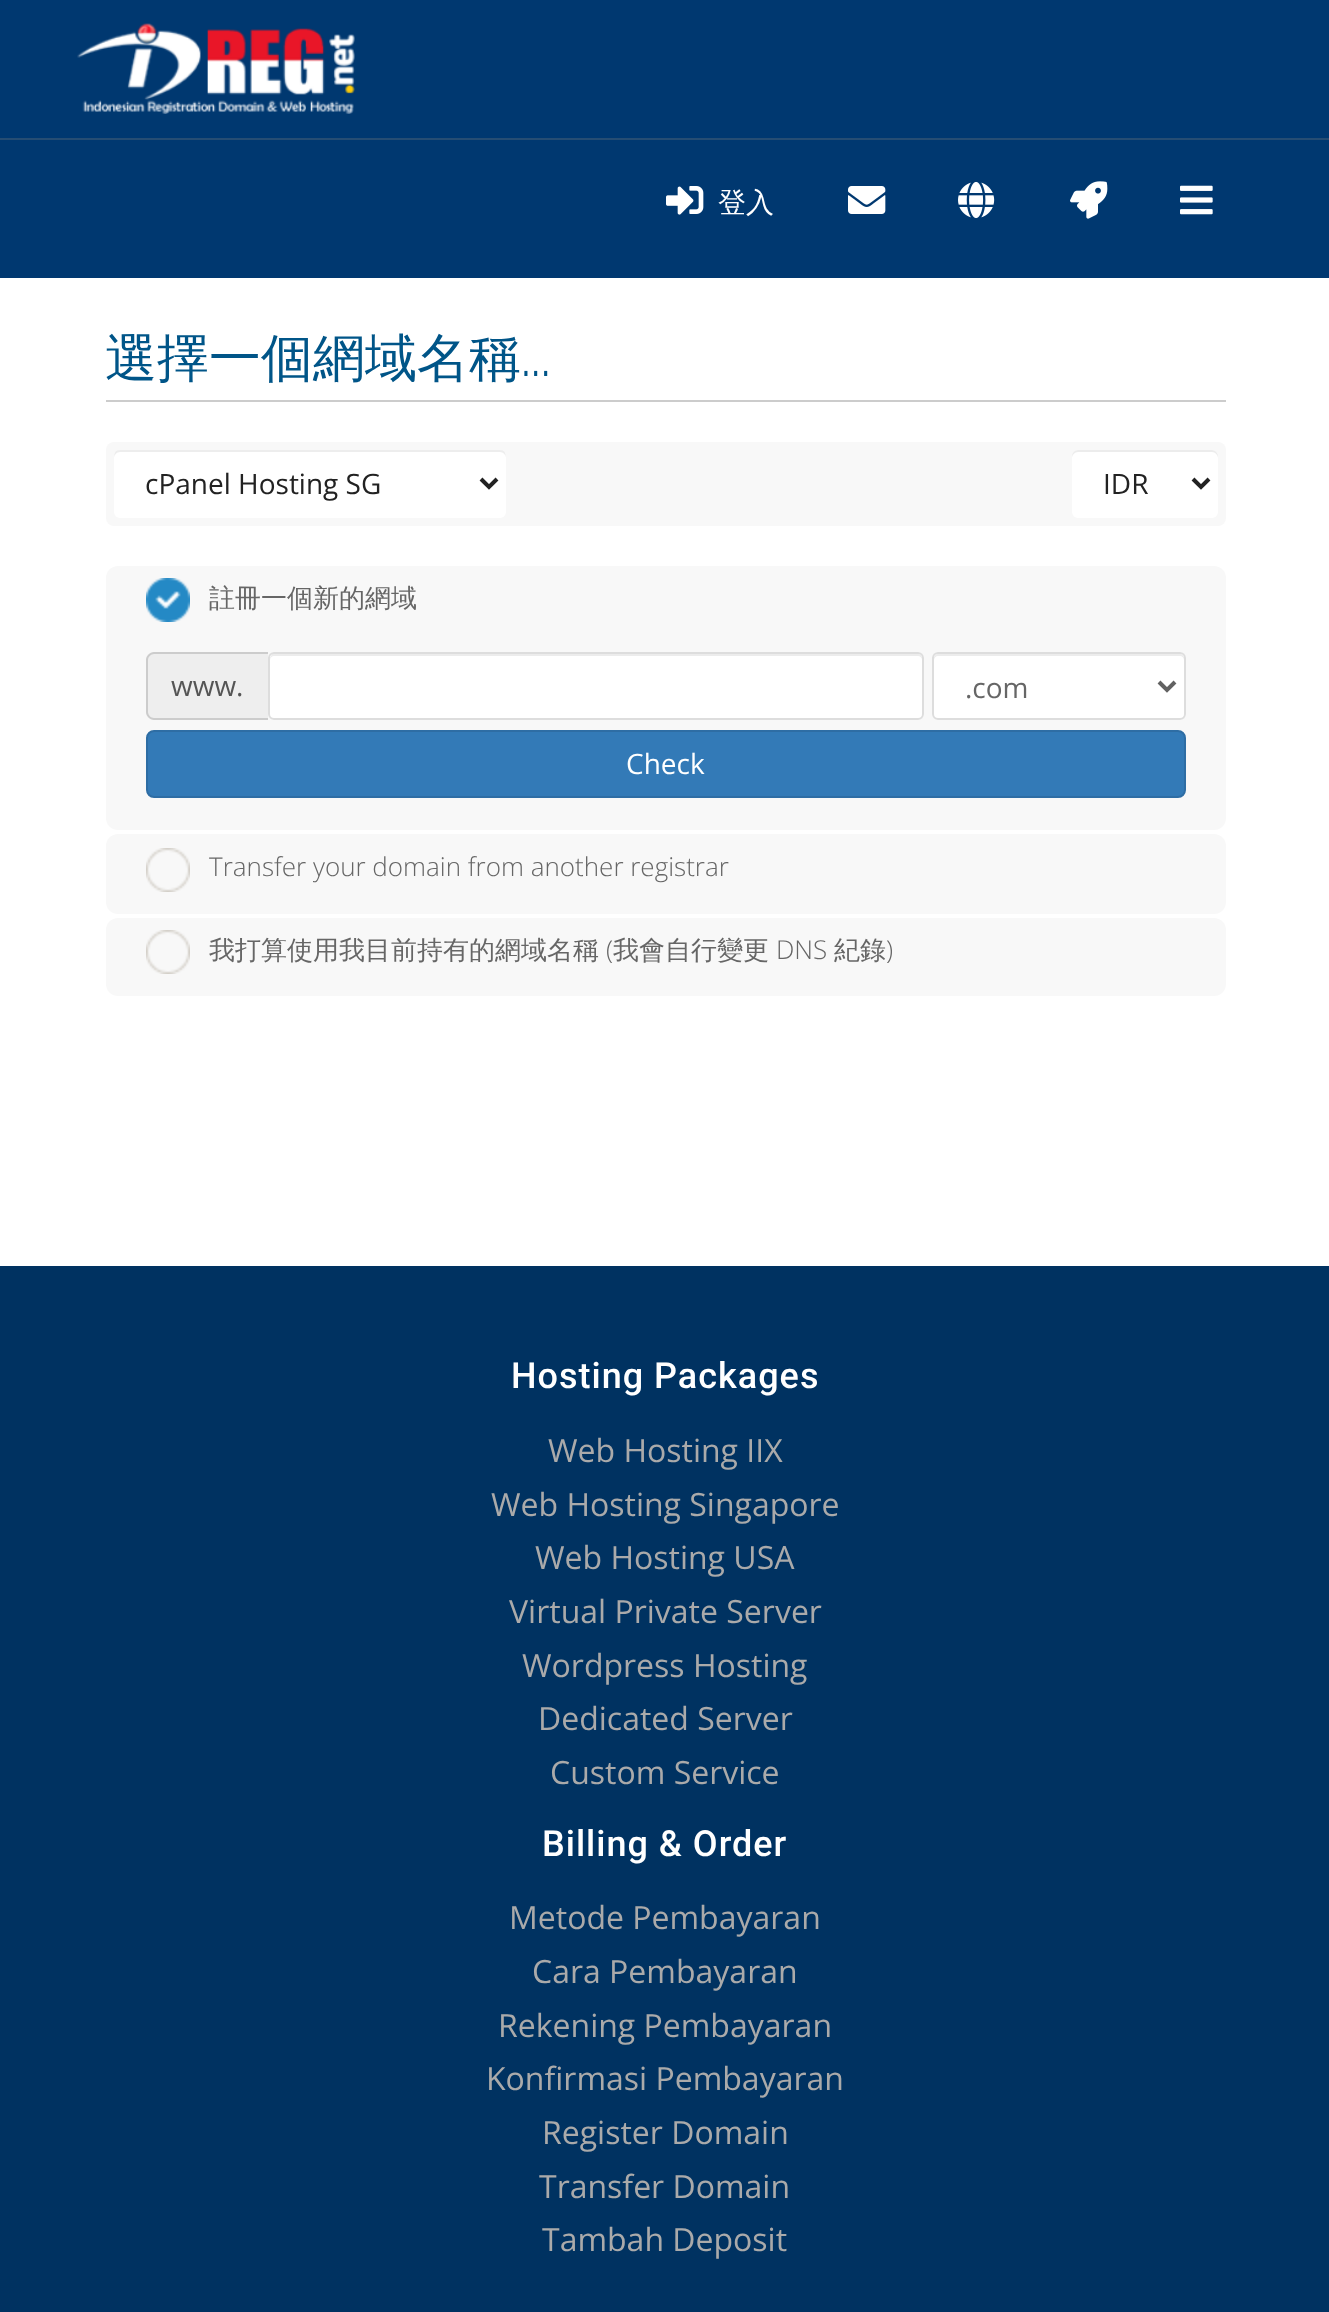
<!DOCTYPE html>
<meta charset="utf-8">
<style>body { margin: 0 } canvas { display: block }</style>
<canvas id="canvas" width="1329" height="2312"></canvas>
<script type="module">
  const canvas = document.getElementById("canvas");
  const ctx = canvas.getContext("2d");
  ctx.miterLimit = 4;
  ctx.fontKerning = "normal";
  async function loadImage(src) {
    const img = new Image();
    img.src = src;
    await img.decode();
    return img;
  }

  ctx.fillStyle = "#003870";
  ctx.fillRect(0, 0, 1329, 2312);
  ctx.fillStyle = "#264d73";
  ctx.fillRect(0, 138, 1329, 2);
  ctx.drawImage(await loadImage("img1.png"), 77, 23, 278, 91);
  ctx.drawImage(await loadImage("img2.png"), 666, 186, 38, 29);
  ctx.font = "500 28px WenQuanYi Zen Hei";
  ctx.fillStyle = "#ffffff";
  ctx.fillText("登入", 718, 212);
  ctx.drawImage(await loadImage("img3.png"), 848, 186, 38, 28);
  ctx.drawImage(await loadImage("img4.png"), 958, 181, 37, 38);
  ctx.drawImage(await loadImage("img5.png"), 1070, 181, 38, 38);
  ctx.drawImage(await loadImage("img6.png"), 1180, 185, 33, 30);
  ctx.fillRect(0, 278, 1329, 988);
  ctx.fillStyle = "#cccccc";
  ctx.fillRect(106, 400, 1120, 2);
  ctx.font = "500 52px WenQuanYi Zen Hei";
  ctx.fillStyle = "#005588";
  ctx.fillText("選擇一個網域名稱", 105, 376);
  ctx.font = "52px Raleway";
  ctx.fillText("...", 521, 376);
  ctx.fillStyle = "#f8f8f8";
  ctx.beginPath();
  ctx.roundRect(106, 442, 1120, 84, 8);
  ctx.fill();
  ctx.fillStyle = "#ffffff";
  ctx.beginPath();
  ctx.roundRect(114, 450, 392, 68, 6);
  ctx.fill();
  ctx.fillStyle = "rgba(0, 0, 0, 0.07)";
  ctx.beginPath();
  ctx.moveTo(120, 452);
  ctx.lineTo(500, 452);
  ctx.bezierCurveTo(503, 452, 506, 455, 506, 458);
  ctx.bezierCurveTo(506, 454, 505, 450, 500, 450);
  ctx.lineTo(120, 450);
  ctx.bezierCurveTo(115, 450, 114, 454, 114, 458);
  ctx.bezierCurveTo(114, 455, 117, 452, 120, 452);
  ctx.closePath();
  ctx.fill();
  ctx.beginPath();
  ctx.moveTo(481, 479);
  ctx.lineTo(489, 487);
  ctx.lineTo(497, 479);
  ctx.strokeStyle = "#222222";
  ctx.lineWidth = 4;
  ctx.stroke();
  ctx.font = "28px Open Sans";
  ctx.fillStyle = "#222222";
  ctx.fillText("cPanel Hosting SG", 145, 494);
  ctx.fillStyle = "#ffffff";
  ctx.beginPath();
  ctx.roundRect(1072, 450, 146, 68, 6);
  ctx.fill();
  ctx.fillStyle = "#ececec";
  ctx.beginPath();
  ctx.moveTo(1078, 452);
  ctx.lineTo(1212, 452);
  ctx.bezierCurveTo(1215, 452, 1218, 455, 1218, 458);
  ctx.lineTo(1218, 456);
  ctx.bezierCurveTo(1218, 453, 1215, 450, 1212, 450);
  ctx.lineTo(1078, 450);
  ctx.bezierCurveTo(1075, 450, 1072, 453, 1072, 456);
  ctx.lineTo(1072, 458);
  ctx.bezierCurveTo(1072, 455, 1075, 452, 1078, 452);
  ctx.closePath();
  ctx.fill();
  ctx.beginPath();
  ctx.moveTo(1193, 479);
  ctx.lineTo(1201, 487);
  ctx.lineTo(1209, 479);
  ctx.stroke();
  ctx.fillStyle = "#222222";
  ctx.fillText("IDR", 1103, 494);
  ctx.fillStyle = "#f8f8f8";
  ctx.beginPath();
  ctx.roundRect(106, 566, 1120, 264, 12);
  ctx.fill();
  ctx.drawImage(await loadImage("img7.png"), 146, 578, 44, 44);
  ctx.font = "500 26px WenQuanYi Zen Hei";
  ctx.fillStyle = "#666666";
  ctx.fillText("註冊一個新的網域", 209, 607);
  ctx.fillStyle = "#eeeeee";
  ctx.beginPath();
  ctx.roundRect(146, 652, 122, 68, [8, 0, 0, 8]);
  ctx.fill();
  ctx.fillStyle = "#cccccc";
  ctx.beginPath();
  ctx.moveTo(154, 652);
  ctx.lineTo(268, 652);
  ctx.lineTo(268, 720);
  ctx.lineTo(154, 720);
  ctx.bezierCurveTo(150, 720, 146, 716, 146, 712);
  ctx.lineTo(146, 660);
  ctx.bezierCurveTo(146, 656, 150, 652, 154, 652);
  ctx.closePath();
  ctx.moveTo(154, 654);
  ctx.lineTo(268, 654);
  ctx.lineTo(268, 718);
  ctx.lineTo(154, 718);
  ctx.bezierCurveTo(151, 718, 148, 715, 148, 712);
  ctx.lineTo(148, 660);
  ctx.bezierCurveTo(148, 657, 151, 654, 154, 654);
  ctx.closePath();
  ctx.fill("evenodd");
  ctx.font = "28px Open Sans";
  ctx.fillStyle = "#555555";
  ctx.fillText("www.", 171, 696);
  ctx.fillStyle = "#ffffff";
  ctx.beginPath();
  ctx.roundRect(268, 652, 656, 68, 6);
  ctx.fill();
  ctx.fillStyle = "#ececec";
  ctx.beginPath();
  ctx.moveTo(274, 656);
  ctx.lineTo(918, 656);
  ctx.bezierCurveTo(920, 656, 922, 658, 922, 660);
  ctx.bezierCurveTo(922, 657, 922, 654, 918, 654);
  ctx.lineTo(272, 654);
  ctx.lineTo(271, 656);
  ctx.bezierCurveTo(270, 657, 270, 659, 270, 660);
  ctx.bezierCurveTo(270, 658, 272, 656, 274, 656);
  ctx.closePath();
  ctx.fill();
  ctx.beginPath();
  ctx.roundRect(269, 653, 654, 66, 5);
  ctx.strokeStyle = "#dddddd";
  ctx.lineWidth = 2;
  ctx.stroke();
  ctx.fillStyle = "#ffffff";
  ctx.beginPath();
  ctx.roundRect(932, 652, 254, 68, 6);
  ctx.fill();
  ctx.fillStyle = "#ececec";
  ctx.beginPath();
  ctx.moveTo(938, 656);
  ctx.lineTo(1180, 656);
  ctx.bezierCurveTo(1182, 656, 1184, 658, 1184, 660);
  ctx.lineTo(1184, 658);
  ctx.bezierCurveTo(1184, 656, 1182, 654, 1180, 654);
  ctx.lineTo(938, 654);
  ctx.bezierCurveTo(936, 654, 934, 656, 934, 658);
  ctx.lineTo(934, 660);
  ctx.bezierCurveTo(934, 658, 936, 656, 938, 656);
  ctx.closePath();
  ctx.fill();
  ctx.beginPath();
  ctx.roundRect(933, 653, 252, 66, 5);
  ctx.stroke();
  ctx.beginPath();
  ctx.moveTo(1159, 682);
  ctx.lineTo(1167, 690);
  ctx.lineTo(1175, 682);
  ctx.strokeStyle = "#626262";
  ctx.lineWidth = 4;
  ctx.stroke();
  ctx.fillStyle = "#666666";
  ctx.fillText(".com", 965, 698);
  ctx.fillStyle = "#337ab7";
  ctx.beginPath();
  ctx.roundRect(147, 731, 1038, 66, 7);
  ctx.fill();
  ctx.strokeStyle = "#2e6da4";
  ctx.lineWidth = 2;
  ctx.stroke();
  ctx.fillStyle = "#ffffff";
  ctx.fillText("Check", 626, 774);
  ctx.fillStyle = "#f8f8f8";
  ctx.beginPath();
  ctx.roundRect(106, 834, 1120, 80, 12);
  ctx.fill();
  ctx.drawImage(await loadImage("img8.png"), 146, 848, 44, 44);
  ctx.font = "300 26px Open Sans";
  ctx.fillStyle = "#666666";
  ctx.fillText("Transfer your domain from another registrar", 209, 876);
  ctx.fillStyle = "#f8f8f8";
  ctx.beginPath();
  ctx.roundRect(106, 918, 1120, 78, 12);
  ctx.fill();
  ctx.drawImage(await loadImage("img8.png"), 146, 930, 44, 44);
  ctx.font = "500 26px WenQuanYi Zen Hei";
  ctx.fillStyle = "#666666";
  ctx.fillText("我打算使用我目前持有的網域名稱", 209, 959);
  ctx.font = "300 26px Open Sans";
  ctx.fillText("(", 606, 959);
  ctx.font = "500 26px WenQuanYi Zen Hei";
  ctx.fillText("我會自行變更", 613, 959);
  ctx.font = "300 26px Open Sans";
  ctx.fillText("DNS", 776, 959);
  ctx.font = "500 26px WenQuanYi Zen Hei";
  ctx.fillText("紀錄", 834, 959);
  ctx.font = "300 26px Open Sans";
  ctx.fillText(")", 886, 959);
  ctx.fillStyle = "#003261";
  ctx.fillRect(0, 1266, 1329, 1046);
  ctx.letterSpacing = "1px";
  ctx.font = "500 36px Roboto";
  ctx.fillStyle = "#ffffff";
  ctx.fillText("Hosting Packages", 511, 1388);
  ctx.letterSpacing = "0px";
  ctx.font = "32px Open Sans";
  ctx.fillStyle = "#aaaaaa";
  ctx.fillText("Web Hosting IIX", 548, 1462);
  ctx.fillText("Web Hosting Singapore", 491, 1516);
  ctx.fillText("Web Hosting USA", 535, 1569);
  ctx.fillText("Virtual Private Server", 509, 1623);
  ctx.fillText("Wordpress Hosting", 522, 1677);
  ctx.fillText("Dedicated Server", 538, 1730);
  ctx.fillText("Custom Service", 550, 1784);
  ctx.letterSpacing = "1px";
  ctx.font = "500 36px Roboto";
  ctx.fillStyle = "#ffffff";
  ctx.fillText("Billing & Order", 542, 1856);
  ctx.letterSpacing = "0px";
  ctx.font = "32px Open Sans";
  ctx.fillStyle = "#aaaaaa";
  ctx.fillText("Metode Pembayaran", 509, 1929);
  ctx.fillText("Cara Pembayaran", 532, 1983);
  ctx.fillText("Rekening Pembayaran", 498, 2037);
  ctx.fillText("Konfirmasi Pembayaran", 486, 2090);
  ctx.fillText("Register Domain", 542, 2144);
  ctx.fillText("Transfer Domain", 539, 2198);
  ctx.fillText("Tambah Deposit", 542, 2251);
</script>
